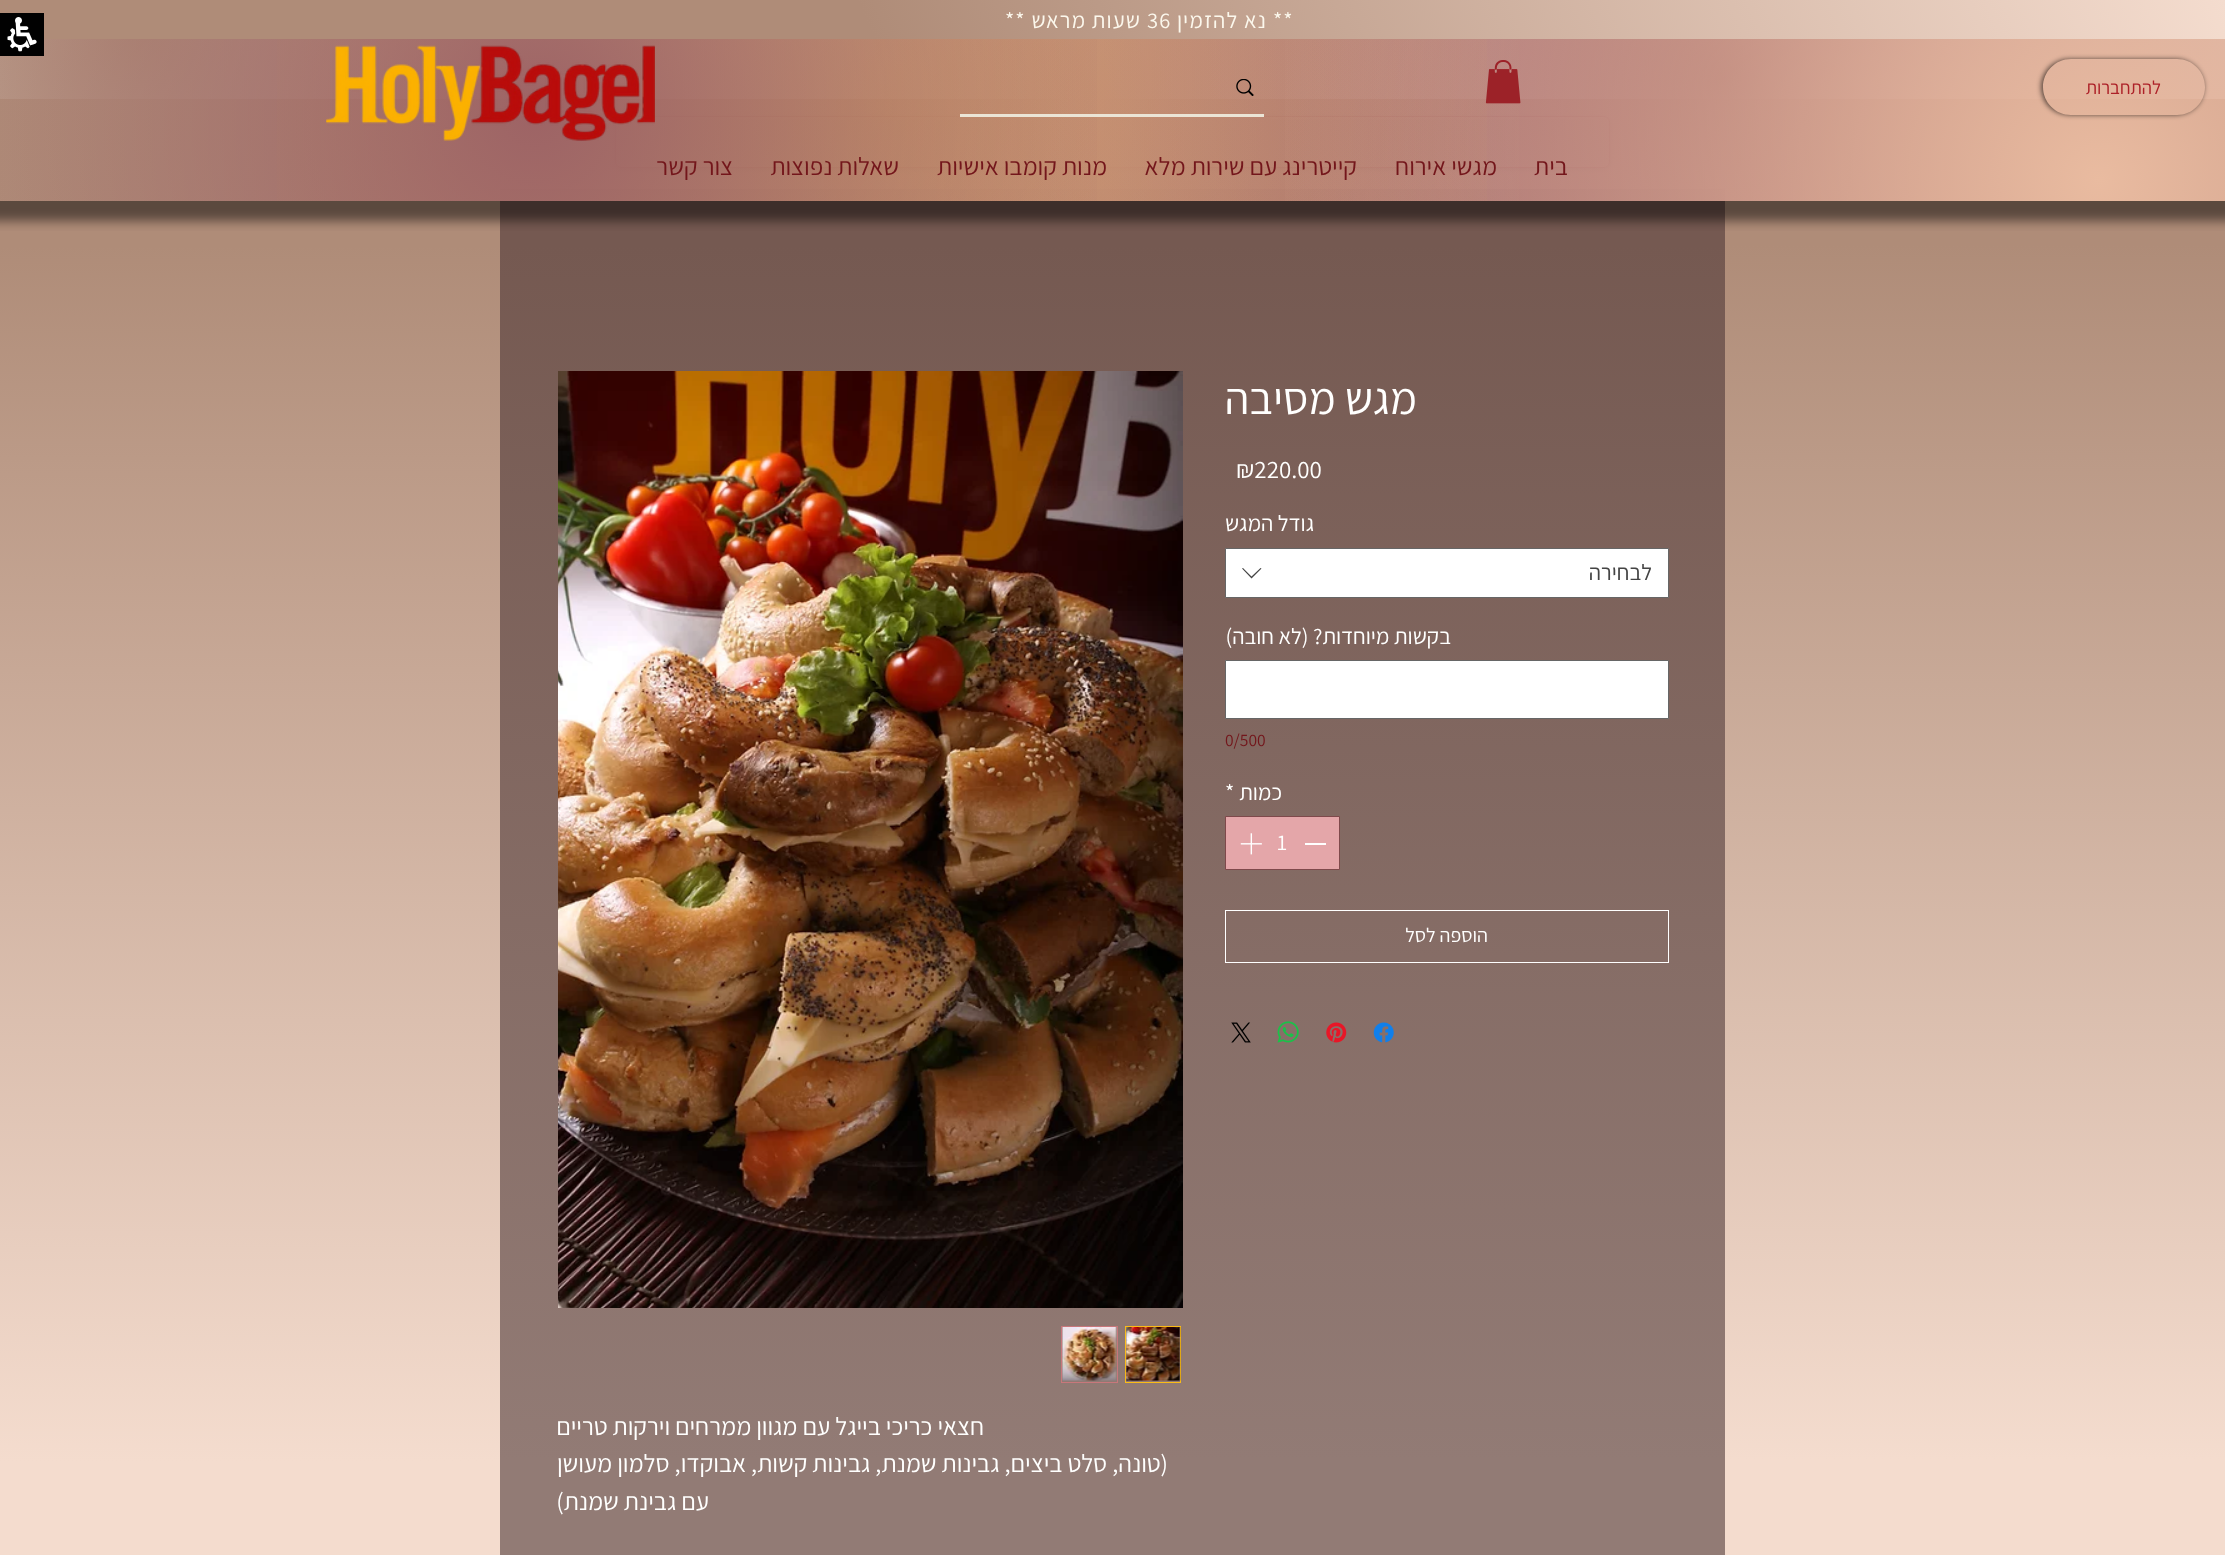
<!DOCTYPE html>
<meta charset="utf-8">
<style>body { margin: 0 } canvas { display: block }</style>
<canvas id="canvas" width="2225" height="1555"></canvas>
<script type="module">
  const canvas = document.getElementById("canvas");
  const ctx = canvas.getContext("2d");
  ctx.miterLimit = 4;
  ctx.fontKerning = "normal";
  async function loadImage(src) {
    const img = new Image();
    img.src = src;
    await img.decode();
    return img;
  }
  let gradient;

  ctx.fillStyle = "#ffffff";
  ctx.fillRect(0, 0, 2225, 1555);
  gradient = ctx.createLinearGradient(1112, 99, 1113, 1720);
  gradient.addColorStop(0.09, "#af8c78");
  gradient.addColorStop(0.84, "#f4dcce");
  ctx.fillStyle = gradient;
  ctx.fillRect(0, 99, 2225, 1456);
  gradient = ctx.createLinearGradient(1112, 99, 1113, 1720);
  gradient.addColorStop(0.09, "#755951");
  gradient.addColorStop(0.84, "#927b75");
  ctx.fillStyle = gradient;
  ctx.fillRect(500, 189, 1225, 1366);
  ctx.save();
  ctx.beginPath();
  ctx.moveTo(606, 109);
  ctx.lineTo(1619, 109);
  ctx.lineTo(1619, 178);
  ctx.lineTo(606, 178);
  ctx.closePath();
  ctx.moveTo(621, 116);
  ctx.lineTo(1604, 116);
  ctx.bezierCurveTo(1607.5, 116, 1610, 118.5, 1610, 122);
  ctx.lineTo(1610, 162);
  ctx.bezierCurveTo(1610, 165.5, 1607.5, 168, 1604, 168);
  ctx.lineTo(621, 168);
  ctx.bezierCurveTo(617.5, 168, 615, 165.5, 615, 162);
  ctx.lineTo(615, 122);
  ctx.bezierCurveTo(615, 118.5, 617.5, 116, 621, 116);
  ctx.closePath();
  ctx.clip("evenodd");
  ctx.fillStyle = "rgba(0, 0, 0, 0.6)";
  ctx.filter = "blur(2.5px)";
  ctx.beginPath();
  ctx.roundRect(615, 118, 995, 51, 6);
  ctx.fill();
  ctx.filter = "none";
  ctx.restore();
  ctx.drawImage(await loadImage("img4.png"), 615, 119, 995, 48);
  ctx.beginPath();
  ctx.roundRect(615.5, 116.5, 994, 51, 5.5);
  ctx.strokeStyle = "#73161b";
  ctx.stroke();
  ctx.save();
  ctx.beginPath();
  ctx.rect(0, 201, 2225, 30);
  ctx.clip();
  ctx.fillStyle = "rgba(0, 0, 0, 0.48)";
  ctx.filter = "blur(5.5px)";
  ctx.beginPath();
  ctx.rect(-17, -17, 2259, 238);
  ctx.fill();
  ctx.filter = "none";
  ctx.restore();
  gradient = ctx.createRadialGradient(1088, 100, 0, 1088, 100, 1141);
  gradient.addColorStop(0, "#e4a6a9");
  gradient.addColorStop(1, "rgba(228, 166, 169, 0)");
  ctx.fillStyle = gradient;
  ctx.fillRect(0, 39, 2208, 162);
  gradient = ctx.createRadialGradient(1721, 78, 0, 1721, 78, 1726);
  gradient.addColorStop(0, "#9d6365");
  gradient.addColorStop(0.7, "rgba(157, 99, 101, 0)");
  ctx.fillStyle = gradient;
  ctx.fillRect(540, 39, 1685, 162);
  gradient = ctx.createRadialGradient(137, 25, 0, 137, 25, 2095);
  gradient.addColorStop(0, "#af8c78");
  gradient.addColorStop(0.7, "rgba(175, 140, 120, 0)");
  ctx.fillStyle = gradient;
  ctx.fillRect(0, 39, 1519, 162);
  gradient = ctx.createRadialGradient(881, 103, 0, 881, 103, 1348);
  gradient.addColorStop(0, "rgba(251, 188, 22, 0.23)");
  gradient.addColorStop(0.5, "rgba(251, 188, 22, 0)");
  ctx.fillStyle = gradient;
  ctx.fillRect(277, 39, 1210, 162);
  gradient = ctx.createRadialGradient(2099, 180, 0, 2099, 180, 2107);
  gradient.addColorStop(0, "#e9bba0");
  gradient.addColorStop(0.4, "rgba(233, 187, 160, 0)");
  ctx.fillStyle = gradient;
  ctx.fillRect(1285, 39, 940, 162);
  ctx.save();
  ctx.beginPath();
  ctx.moveTo(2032, 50);
  ctx.lineTo(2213, 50);
  ctx.lineTo(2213, 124);
  ctx.lineTo(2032, 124);
  ctx.closePath();
  ctx.moveTo(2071, 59);
  ctx.lineTo(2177, 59);
  ctx.bezierCurveTo(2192.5, 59, 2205, 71.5, 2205, 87);
  ctx.bezierCurveTo(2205, 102.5, 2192.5, 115, 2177, 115);
  ctx.lineTo(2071, 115);
  ctx.bezierCurveTo(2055.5, 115, 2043, 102.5, 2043, 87);
  ctx.bezierCurveTo(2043, 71.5, 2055.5, 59, 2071, 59);
  ctx.closePath();
  ctx.clip("evenodd");
  ctx.fillStyle = "rgba(0, 0, 0, 0.6)";
  ctx.filter = "blur(2.5px)";
  ctx.beginPath();
  ctx.roundRect(2041, 59, 163, 56, 28);
  ctx.fill();
  ctx.filter = "none";
  ctx.restore();
  ctx.direction = "rtl";
  ctx.font = "18.75px Assistant";
  ctx.fillStyle = "#ad2128";
  ctx.fillText("להתחברות", 2161, 94);
  gradient = ctx.createRadialGradient(535, 112, 0, 535, 112, 1694);
  gradient.addColorStop(0, "#9d6365");
  gradient.addColorStop(0.35, "rgba(157, 99, 101, 0)");
  ctx.fillStyle = gradient;
  ctx.fillRect(0, 39, 1097, 162);
  gradient = ctx.createLinearGradient(177, 436, 2048, -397);
  gradient.addColorStop(0.39, "#af8c78");
  gradient.addColorStop(1, "#f4dcce");
  ctx.fillStyle = gradient;
  ctx.fillRect(0, 0, 2225, 39);
  ctx.letterSpacing = "1.1px";
  ctx.direction = "ltr";
  ctx.font = "22.5px Assistant";
  ctx.fillStyle = "#fcf8ed";
  ctx.fillText("**", 1273, 28);
  ctx.direction = "rtl";
  ctx.fillText("נא להזמין", 1267, 28);
  ctx.direction = "ltr";
  ctx.fillText("36", 1147, 28);
  ctx.direction = "rtl";
  ctx.fillText("שעות מראש", 1141, 28);
  ctx.direction = "ltr";
  ctx.fillText("**", 1005, 28);
  ctx.drawImage(await loadImage("img1.png"), 1485, 60, 36, 44);
  ctx.fillStyle = "#ebe5d6";
  ctx.fillRect(960, 114, 304, 3);
  ctx.drawImage(await loadImage("img2.png"), 1236, 79, 18, 17);
  ctx.drawImage(await loadImage("img3.png"), 326, 45, 329, 96);
  ctx.letterSpacing = "0px";
  ctx.direction = "rtl";
  ctx.font = "25px Assistant";
  ctx.fillStyle = "#73161b";
  ctx.fillText("בית", 1568, 175);
  ctx.fillText("מגשי אירוח", 1497, 175);
  ctx.fillText("קייטרינג עם שירות מלא", 1357, 175);
  ctx.fillText("מנות קומבו אישיות", 1107, 175);
  ctx.fillText("שאלות נפוצות", 899, 175);
  ctx.fillText("צור קשר", 733, 175);
  ctx.font = "45px Assistant";
  ctx.fillStyle = "#fffffe";
  ctx.fillText("מגש מסיבה", 1417, 414);
  ctx.direction = "ltr";
  ctx.font = "25px Assistant";
  ctx.fillText("₪220.00", 1236, 478);
  ctx.direction = "rtl";
  ctx.font = "22.5px Assistant";
  ctx.fillText("גודל המגש", 1314, 531);
  ctx.fillStyle = "#ffffff";
  ctx.beginPath();
  ctx.rect(1225.5, 548.5, 443, 49);
  ctx.fill();
  ctx.strokeStyle = "#666666";
  ctx.stroke();
  ctx.fillStyle = "#444444";
  ctx.fillText("לבחירה", 1652, 580);
  ctx.beginPath();
  ctx.moveTo(1260.5, 568);
  ctx.lineTo(1261.5, 568.5);
  ctx.lineTo(1251.5, 578.5);
  ctx.lineTo(1242, 568.5);
  ctx.lineTo(1243, 568);
  ctx.lineTo(1251.5, 576.5);
  ctx.closePath();
  ctx.fill("evenodd");
  ctx.fillStyle = "#fffffe";
  ctx.fillText("בקשות מיוחדות? (לא חובה)", 1451, 644);
  ctx.fillStyle = "#ffffff";
  ctx.beginPath();
  ctx.rect(1225.5, 660.5, 443, 58);
  ctx.fill();
  ctx.stroke();
  ctx.direction = "ltr";
  ctx.font = "17.5px Assistant";
  ctx.fillStyle = "#73161b";
  ctx.fillText("0/500", 1225, 746);
  ctx.direction = "rtl";
  ctx.font = "22.5px Assistant";
  ctx.fillStyle = "#fffffe";
  ctx.fillText("כמות", 1282, 800);
  ctx.direction = "ltr";
  ctx.fillText("*", 1225, 800);
  ctx.fillStyle = "#e4a6a9";
  ctx.beginPath();
  ctx.rect(1225.5, 816.5, 114, 53);
  ctx.fill();
  ctx.strokeStyle = "#7e494b";
  ctx.stroke();
  ctx.fillStyle = "#ffffff";
  ctx.fillRect(1305, 843, 21, 2);
  ctx.fillStyle = "#fffffe";
  ctx.fillText("1", 1277, 850);
  ctx.drawImage(await loadImage("img5.png"), 1240, 833, 22, 22);
  ctx.strokeStyle = "#ffffff";
  ctx.strokeRect(1225.5, 910.5, 443, 52);
  ctx.direction = "rtl";
  ctx.font = "20px Assistant";
  ctx.fillText("הוספה לסל", 1488, 942);
  ctx.drawImage(await loadImage("img6.png"), 1373, 1022, 21, 21);
  ctx.drawImage(await loadImage("img7.png"), 1326, 1022, 21, 21);
  ctx.drawImage(await loadImage("img8.png"), 1277, 1021, 22, 22);
  ctx.drawImage(await loadImage("img9.png"), 1231, 1022, 20, 21);
  ctx.drawImage(await loadImage("img10.png"), 558, 371, 625, 937);
  ctx.strokeStyle = "#fbbc16";
  ctx.strokeRect(1125.5, 1326.5, 55, 56);
  ctx.drawImage(await loadImage("img11.png"), 1125, 1327, 56, 54);
  ctx.strokeStyle = "#c8777b";
  ctx.strokeRect(1061.5, 1326.5, 56, 56);
  ctx.drawImage(await loadImage("img12.png"), 1062, 1327, 55, 54);
  ctx.font = "25px Assistant";
  ctx.fillText("חצאי כריכי בייגל עם מגוון ממרחים וירקות טריים", 984, 1435);
  ctx.fillText("(טונה, סלט ביצים, גבינות שמנת, גבינות קשות, אבוקדו, סלמון מעושן", 1168, 1472);
  ctx.fillText("עם גבינת שמנת)", 709, 1510);
  ctx.fillStyle = "#010101";
  ctx.fillRect(0, 13, 44, 43);
  ctx.drawImage(await loadImage("img13.png"), 7, 17, 30, 35);
</script>
